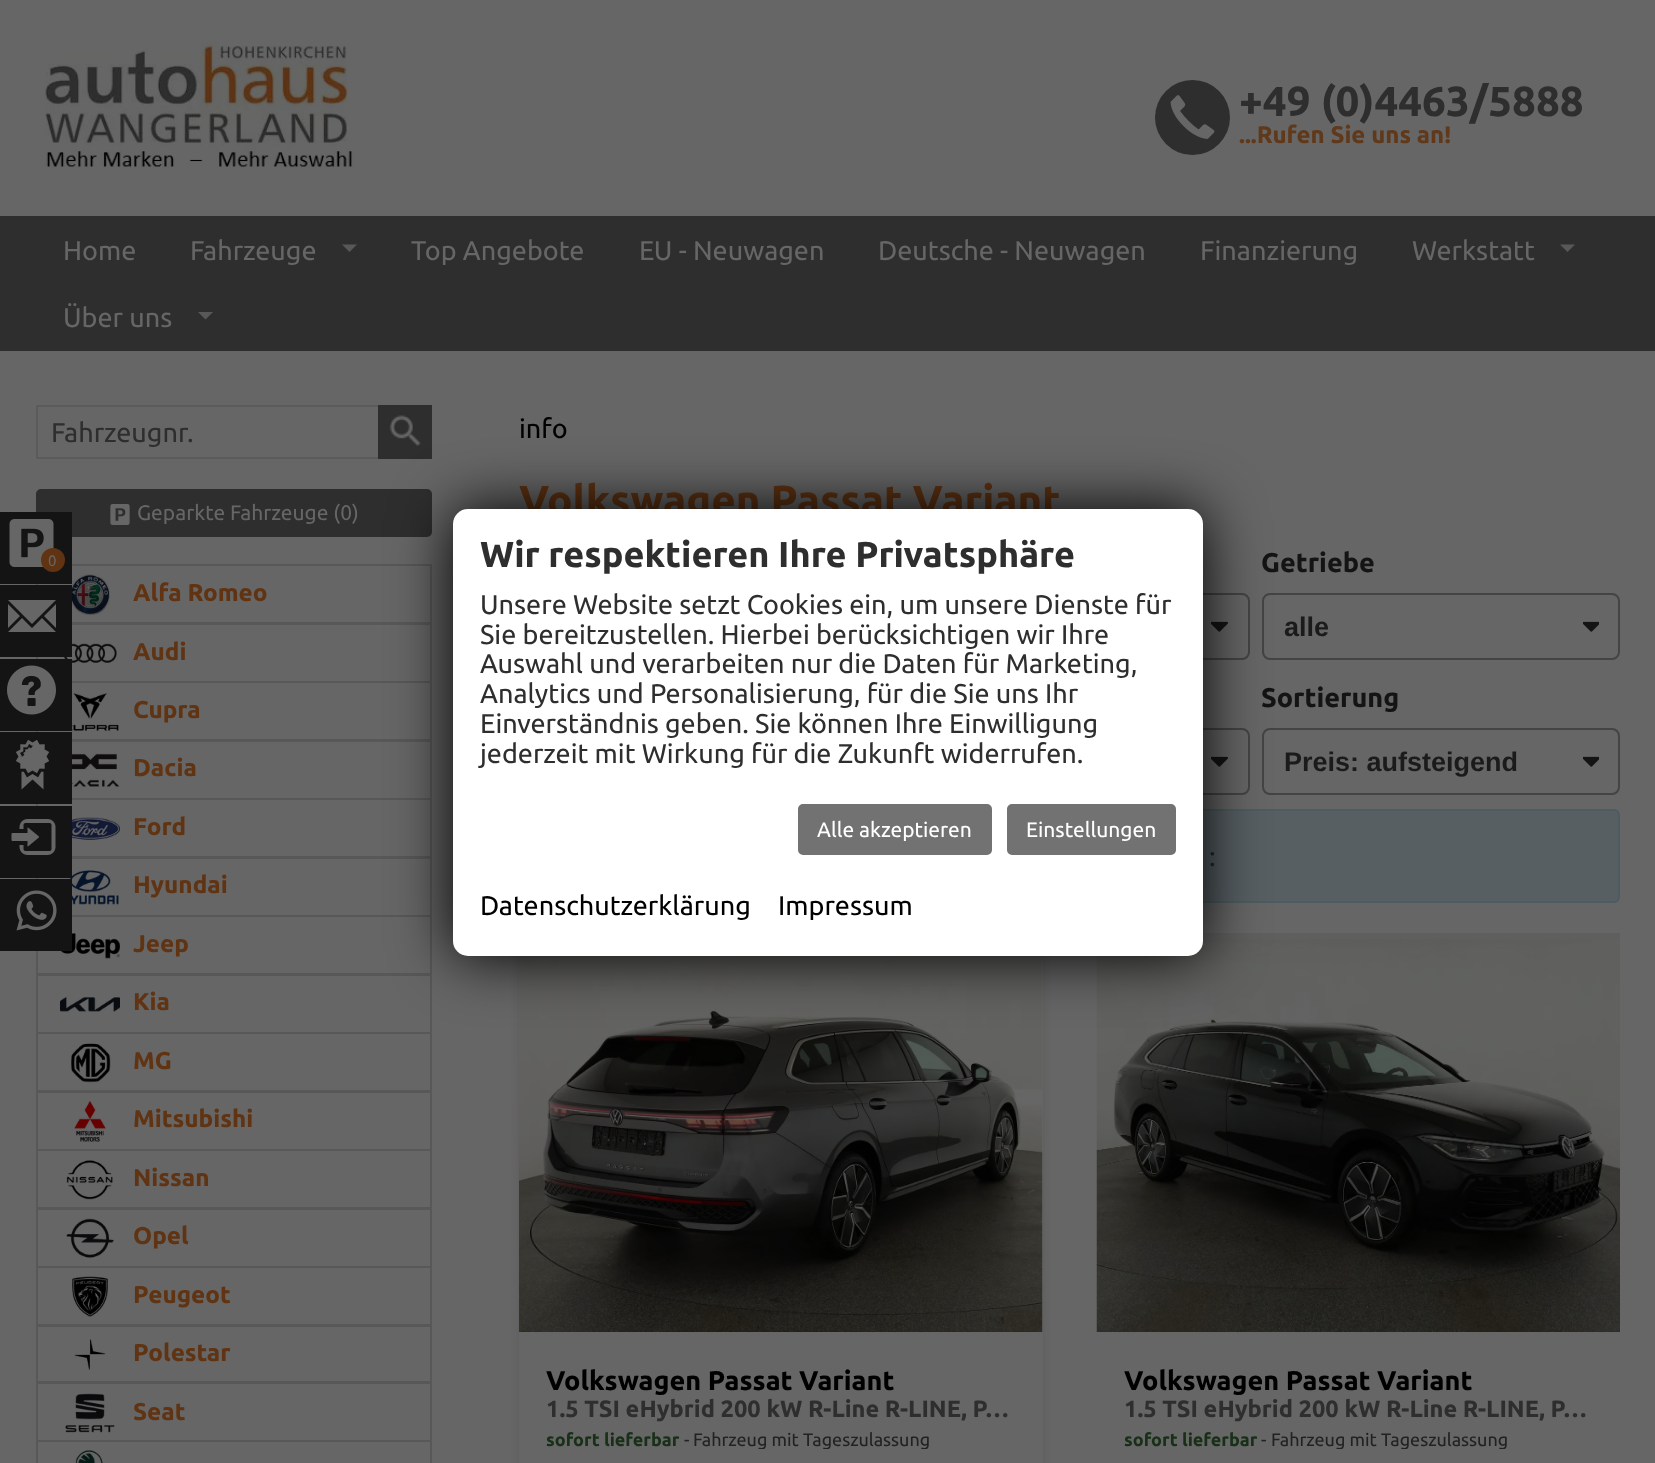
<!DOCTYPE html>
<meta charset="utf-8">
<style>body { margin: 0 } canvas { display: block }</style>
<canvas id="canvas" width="1655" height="1463"></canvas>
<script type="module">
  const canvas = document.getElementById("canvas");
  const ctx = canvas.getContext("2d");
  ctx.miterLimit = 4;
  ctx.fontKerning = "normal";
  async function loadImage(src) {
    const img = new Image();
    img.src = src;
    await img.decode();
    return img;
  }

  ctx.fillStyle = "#666666";
  ctx.fillRect(0, 0, 1655, 1463);
  ctx.drawImage(await loadImage("img1.png"), 45, 42, 310, 126);
  ctx.fillStyle = "#2e2e2e";
  ctx.beginPath();
  ctx.arc(1192.5, 117.5, 37.5, 0, Math.PI * 2);
  ctx.fill();
  ctx.drawImage(await loadImage("img2.png"), 1170, 95, 45, 44);
  ctx.font = "bold 42px Ubuntu";
  ctx.fillText("+49 (0)4463/5888", 1239, 116);
  ctx.font = "bold 24px Ubuntu";
  ctx.fillStyle = "#60381a";
  ctx.fillText("...Rufen Sie uns an!", 1239, 143);
  ctx.fillStyle = "#2e2e2e";
  ctx.beginPath();
  ctx.roundRect(37, 490, 394, 46, 4);
  ctx.fill();
  ctx.strokeStyle = "#2e2e2e";
  ctx.lineWidth = 2;
  ctx.stroke();
  ctx.strokeStyle = "#585858";
  ctx.strokeRect(37, 565, 394, 58);
  ctx.fillStyle = "#141414";
  ctx.fillRect(0, 512, 72, 72);
  ctx.drawImage(await loadImage("img3.png"), 9, 519, 45, 48);
  ctx.fillStyle = "#603312";
  ctx.beginPath();
  ctx.arc(53, 560, 12, 0, Math.PI * 2);
  ctx.fill();
  ctx.font = "15px Ubuntu";
  ctx.fillStyle = "#666666";
  ctx.fillText("0", 48, 566);
  ctx.strokeRect(37, 624, 394, 58);
  ctx.drawImage(await loadImage("img11.png"), 63, 643, 54, 20);
  ctx.fillStyle = "#141414";
  ctx.fillRect(0, 585, 72, 72);
  ctx.fillStyle = "#666666";
  ctx.beginPath();
  ctx.moveTo(32, 624);
  ctx.lineTo(8, 600);
  ctx.lineTo(56, 600);
  ctx.closePath();
  ctx.moveTo(8, 628);
  ctx.lineTo(8, 604);
  ctx.lineTo(20, 616);
  ctx.closePath();
  ctx.moveTo(56, 628);
  ctx.lineTo(44, 616);
  ctx.lineTo(56, 604);
  ctx.closePath();
  ctx.moveTo(8, 632);
  ctx.lineTo(22, 618);
  ctx.lineTo(32, 628);
  ctx.lineTo(42, 618);
  ctx.lineTo(56, 632);
  ctx.closePath();
  ctx.fill();
  ctx.strokeRect(37, 682, 394, 58);
  ctx.fillStyle = "#141414";
  ctx.fillRect(0, 659, 72, 72);
  ctx.drawImage(await loadImage("img4.png"), 7, 665, 49, 50);
  ctx.strokeRect(37, 741, 394, 58);
  ctx.strokeRect(37, 799, 394, 58);
  ctx.fillRect(0, 732, 72, 72);
  ctx.drawImage(await loadImage("img5.png"), 15, 739, 35, 51);
  ctx.strokeRect(37, 858, 394, 58);
  ctx.drawImage(await loadImage("img15.png"), 69, 870, 50, 35);
  ctx.fillRect(0, 806, 72, 72);
  ctx.drawImage(await loadImage("img6.png"), 11, 819, 45, 36);
  ctx.strokeRect(37, 916, 394, 58);
  ctx.drawImage(await loadImage("img16.png"), 61, 933, 59, 26);
  ctx.fillRect(0, 879, 72, 72);
  ctx.drawImage(await loadImage("img7.png"), 16, 890, 41, 41);
  ctx.fillStyle = "#2e2e2e";
  ctx.fillRect(0, 216, 1655, 135);
  ctx.font = "27px Ubuntu";
  ctx.fillStyle = "#666666";
  ctx.fillText("Home", 63, 260);
  ctx.fillText("Fahrzeuge", 190, 260);
  ctx.fillStyle = "#585858";
  ctx.beginPath();
  ctx.moveTo(342, 244.5);
  ctx.lineTo(357, 244.5);
  ctx.lineTo(349.5, 252);
  ctx.closePath();
  ctx.fill();
  ctx.fillStyle = "#666666";
  ctx.fillText("Top Angebote", 411, 260);
  ctx.fillText("EU - Neuwagen", 639, 260);
  ctx.fillText("Deutsche - Neuwagen", 878, 260);
  ctx.fillText("Finanzierung", 1200, 260);
  ctx.fillText("Werkstatt", 1412, 260);
  ctx.fillStyle = "#585858";
  ctx.beginPath();
  ctx.moveTo(1560, 244.5);
  ctx.lineTo(1575, 244.5);
  ctx.lineTo(1567.5, 252);
  ctx.closePath();
  ctx.fill();
  ctx.fillStyle = "#666666";
  ctx.fillText("Über uns", 63, 327);
  ctx.fillStyle = "#585858";
  ctx.beginPath();
  ctx.moveTo(198, 312);
  ctx.lineTo(213, 312);
  ctx.lineTo(205.5, 319.5);
  ctx.closePath();
  ctx.fill();
  ctx.strokeStyle = "#5b5b5b";
  ctx.strokeRect(37, 406, 394, 52);
  ctx.fillStyle = "#2e2e2e";
  ctx.fillText("Fahrzeugnr.", 51, 442);
  ctx.fillRect(378, 405, 54, 54);
  ctx.drawImage(await loadImage("img8.png"), 389, 415, 32, 31);
  ctx.drawImage(await loadImage("img9.png"), 110, 504, 20, 21);
  ctx.font = "21px Ubuntu";
  ctx.fillStyle = "#666666";
  ctx.fillText("Geparkte Fahrzeuge (0)", 137, 520);
  ctx.drawImage(await loadImage("img10.png"), 72, 574, 38, 41);
  ctx.font = "bold 24.25px Ubuntu";
  ctx.fillStyle = "#603312";
  ctx.fillText("Alfa Romeo", 133, 601);
  ctx.fillText("Audi", 133, 660);
  ctx.drawImage(await loadImage("img12.png"), 72, 693, 47, 38);
  ctx.fillText("Cupra", 133, 718);
  ctx.drawImage(await loadImage("img13.png"), 72, 753, 48, 34);
  ctx.fillText("Dacia", 133, 776);
  ctx.drawImage(await loadImage("img14.png"), 72, 817, 48, 23);
  ctx.fillText("Ford", 133, 835);
  ctx.fillText("Hyundai", 133, 893);
  ctx.fillText("Jeep", 133, 952);
  ctx.strokeStyle = "#585858";
  ctx.strokeRect(37, 975, 394, 58);
  ctx.drawImage(await loadImage("img17.png"), 60, 997, 60, 15);
  ctx.fillText("Kia", 133, 1010);
  ctx.strokeRect(37, 1033, 394, 58);
  ctx.drawImage(await loadImage("img18.png"), 71, 1043, 40, 40);
  ctx.fillText("MG", 133, 1069);
  ctx.strokeRect(37, 1092, 394, 58);
  ctx.drawImage(await loadImage("img19.png"), 74, 1101, 32, 41);
  ctx.fillText("Mitsubishi", 133, 1127);
  ctx.strokeRect(37, 1150, 394, 58);
  ctx.drawImage(await loadImage("img20.png"), 66, 1160, 47, 40);
  ctx.fillText("Nissan", 133, 1186);
  ctx.strokeRect(37, 1209, 394, 58);
  ctx.drawImage(await loadImage("img21.png"), 66, 1218, 48, 40);
  ctx.fillText("Opel", 133, 1244);
  ctx.strokeRect(37, 1267, 394, 58);
  ctx.drawImage(await loadImage("img22.png"), 72, 1276, 36, 41);
  ctx.fillText("Peugeot", 133, 1303);
  ctx.strokeRect(37, 1326, 394, 56);
  ctx.drawImage(await loadImage("img23.png"), 74, 1339, 32, 31);
  ctx.fillText("Polestar", 133, 1361);
  ctx.strokeRect(37, 1383, 394, 58);
  ctx.drawImage(await loadImage("img24.png"), 65, 1393, 50, 40);
  ctx.fillText("Seat", 133, 1420);
  ctx.strokeRect(37, 1441, 394, 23);
  ctx.drawImage(await loadImage("img25.png"), 75, 1450, 28, 13);
  ctx.font = "27px Ubuntu";
  ctx.fillStyle = "#000000";
  ctx.fillText("info", 519, 438);
  ctx.font = "bold 42px Ubuntu";
  ctx.fillStyle = "#603312";
  ctx.fillText("Volkswagen Passat Variant", 519, 515);
  ctx.drawImage(await loadImage("img26.png"), 1211, 621, 17, 11);
  ctx.beginPath();
  ctx.roundRect(891, 594, 358, 65, 7);
  ctx.strokeStyle = "#444444";
  ctx.stroke();
  ctx.font = "bold 27px Ubuntu";
  ctx.fillStyle = "#141414";
  ctx.fillText("Getriebe", 1261, 572);
  ctx.drawImage(await loadImage("img27.png"), 1583, 621, 16, 11);
  ctx.beginPath();
  ctx.roundRect(1263, 594, 356, 65, 7);
  ctx.stroke();
  ctx.font = "bold 27px Liberation Sans";
  ctx.fillStyle = "#1b1b1b";
  ctx.fillText("alle", 1284, 636);
  ctx.drawImage(await loadImage("img26.png"), 1211, 756, 17, 11);
  ctx.beginPath();
  ctx.roundRect(891, 729, 358, 65, 7);
  ctx.stroke();
  ctx.font = "bold 27px Ubuntu";
  ctx.fillStyle = "#141414";
  ctx.fillText("Sortierung", 1261, 707);
  ctx.drawImage(await loadImage("img27.png"), 1583, 756, 16, 11);
  ctx.beginPath();
  ctx.roundRect(1263, 729, 356, 65, 7);
  ctx.stroke();
  ctx.font = "bold 27px Liberation Sans";
  ctx.fillStyle = "#1b1b1b";
  ctx.fillText("Preis: aufsteigend", 1284, 771);
  ctx.fillStyle = "#575f63";
  ctx.beginPath();
  ctx.roundRect(520, 810, 1099, 92, 5);
  ctx.fill();
  ctx.strokeStyle = "#4b5d60";
  ctx.stroke();
  ctx.font = "27px Ubuntu";
  ctx.fillStyle = "#142d39";
  ctx.fillText(":", 1209, 866);
  ctx.fillStyle = "rgba(0, 0, 0, 0.1)";
  ctx.filter = "blur(4px)";
  ctx.beginPath();
  ctx.rect(519, 936, 524, 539);
  ctx.fill();
  ctx.filter = "none";
  ctx.fillStyle = "#666666";
  ctx.fillRect(519, 956, 524, 507);
  ctx.drawImage(await loadImage("img28.png"), 519, 956, 524, 376);
  ctx.font = "bold 27px Ubuntu";
  ctx.fillStyle = "#000000";
  ctx.fillText("Volkswagen Passat Variant", 546, 1390);
  ctx.font = "bold 23.6px Ubuntu";
  ctx.fillStyle = "#2e2e2e";
  ctx.fillText("1.5 TSI eHybrid 200 kW R-Line R-LINE, P…", 546, 1417);
  ctx.font = "bold 18px Ubuntu";
  ctx.fillStyle = "#182f18";
  ctx.fillText("sofort lieferbar", 546, 1446);
  ctx.font = "18px Ubuntu";
  ctx.fillStyle = "#222222";
  ctx.fillText("-", 684, 1446);
  ctx.save();
  ctx.beginPath();
  ctx.rect(546, 1430, 470, 19);
  ctx.clip();
  ctx.fillText("Fahrzeug mit Tageszulassung", 693, 1446);
  ctx.restore();
  ctx.fillStyle = "#5f5f5f";
  ctx.fillRect(1203, 933, 417, 6);
  ctx.drawImage(await loadImage("img29.png"), 1096, 939, 524, 393);
  ctx.font = "bold 27px Ubuntu";
  ctx.fillStyle = "#000000";
  ctx.fillText("Volkswagen Passat Variant", 1124, 1390);
  ctx.font = "bold 23.6px Ubuntu";
  ctx.fillStyle = "#2e2e2e";
  ctx.fillText("1.5 TSI eHybrid 200 kW R-Line R-LINE, P…", 1124, 1417);
  ctx.font = "bold 18px Ubuntu";
  ctx.fillStyle = "#182f18";
  ctx.fillText("sofort lieferbar", 1124, 1446);
  ctx.font = "18px Ubuntu";
  ctx.fillStyle = "#222222";
  ctx.fillText("-", 1261, 1446);
  ctx.save();
  ctx.beginPath();
  ctx.rect(1124, 1430, 469, 19);
  ctx.clip();
  ctx.fillText("Fahrzeug mit Tageszulassung", 1271, 1446);
  ctx.restore();
  ctx.fillStyle = "#000000";
  ctx.filter = "blur(30px)";
  ctx.beginPath();
  ctx.roundRect(453, 509, 750, 447, 15);
  ctx.fill();
  ctx.filter = "none";
  ctx.fillStyle = "#ffffff";
  ctx.beginPath();
  ctx.roundRect(453, 509, 750, 447, 15);
  ctx.fill();
  ctx.font = "bold 36px Ubuntu";
  ctx.fillStyle = "#2e2e2e";
  ctx.fillText("Wir respektieren Ihre Privatsphäre", 480, 567);
  ctx.font = "27px Ubuntu";
  ctx.fillText("Unsere Website setzt Cookies ein, um unsere Dienste für", 480, 614);
  ctx.fillText("Sie bereitzustellen. Hierbei berücksichtigen wir Ihre", 480, 644);
  ctx.fillText("Auswahl und verarbeiten nur die Daten für Marketing,", 480, 673);
  ctx.fillText("Analytics und Personalisierung, für die Sie uns Ihr", 480, 703);
  ctx.fillText("Einverständnis geben. Sie können Ihre Einwilligung", 480, 733);
  ctx.fillText("jederzeit mit Wirkung für die Zukunft widerrufen.", 480, 763);
  ctx.fillStyle = "#727272";
  ctx.beginPath();
  ctx.roundRect(799, 805, 192, 49, 4);
  ctx.fill();
  ctx.strokeStyle = "#727272";
  ctx.stroke();
  ctx.font = "21px Ubuntu";
  ctx.fillStyle = "#ffffff";
  ctx.fillText("Alle akzeptieren", 817, 837);
  ctx.fillStyle = "#727272";
  ctx.beginPath();
  ctx.roundRect(1008, 805, 167, 49, 4);
  ctx.fill();
  ctx.stroke();
  ctx.fillStyle = "#ffffff";
  ctx.fillText("Einstellungen", 1026, 837);
  ctx.font = "27px Ubuntu";
  ctx.fillStyle = "#000000";
  ctx.fillText("Datenschutzerklärung", 480, 915);
  ctx.fillText("Impressum", 778, 915);
</script>
